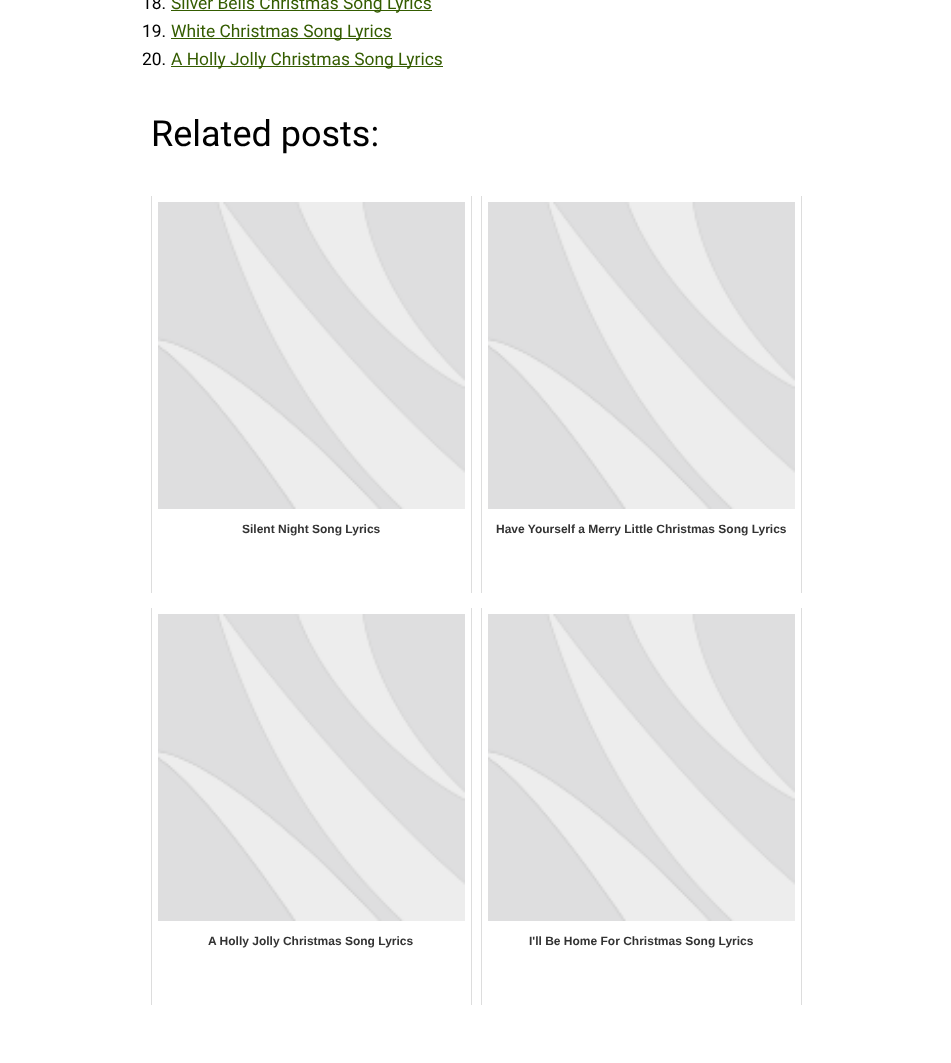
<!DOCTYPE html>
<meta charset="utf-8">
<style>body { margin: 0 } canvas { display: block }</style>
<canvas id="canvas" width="951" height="1063"></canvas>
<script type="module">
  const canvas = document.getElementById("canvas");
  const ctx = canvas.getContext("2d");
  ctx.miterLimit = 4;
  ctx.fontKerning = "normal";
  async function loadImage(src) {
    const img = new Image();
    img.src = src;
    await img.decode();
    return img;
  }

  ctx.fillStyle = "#ffffff";
  ctx.fillRect(0, 0, 951, 1063);
  ctx.font = "17.4px Roboto";
  ctx.fillStyle = "#000000";
  ctx.fillText("18.", 142, 9);
  ctx.fillStyle = "#345c00";
  ctx.fillRect(171, 10, 261, 1);
  ctx.fillText("Silver Bells Christmas Song Lyrics", 171, 9);
  ctx.fillStyle = "#000000";
  ctx.fillText("19.", 142, 37);
  ctx.fillStyle = "#345c00";
  ctx.fillRect(171, 38, 221, 1);
  ctx.fillText("White Christmas Song Lyrics", 171, 37);
  ctx.fillStyle = "#000000";
  ctx.fillText("20.", 142, 65);
  ctx.fillStyle = "#345c00";
  ctx.fillRect(171, 66, 272, 1);
  ctx.fillText("A Holly Jolly Christmas Song Lyrics", 171, 65);
  ctx.font = "36px Roboto";
  ctx.fillStyle = "#000000";
  ctx.fillText("Related posts:", 151, 146);
  ctx.fillStyle = "#dddddd";
  ctx.fillRect(471, 196, 1, 397);
  ctx.fillRect(151, 196, 1, 397);
  ctx.drawImage(await loadImage("img1.png"), 158, 202, 307, 307);
  ctx.font = "bold 12px Liberation Sans";
  ctx.fillStyle = "#333333";
  ctx.fillText("Silent Night Song Lyrics", 242, 533);
  ctx.fillStyle = "#dddddd";
  ctx.fillRect(801, 196, 1, 397);
  ctx.fillRect(481, 196, 1, 397);
  ctx.drawImage(await loadImage("img1.png"), 488, 202, 307, 307);
  ctx.fillStyle = "#333333";
  ctx.fillText("Have Yourself a Merry Little Christmas Song Lyrics", 496, 533);
  ctx.fillStyle = "#dddddd";
  ctx.fillRect(471, 608, 1, 397);
  ctx.fillRect(151, 608, 1, 397);
  ctx.drawImage(await loadImage("img1.png"), 158, 614, 307, 307);
  ctx.fillStyle = "#333333";
  ctx.fillText("A Holly Jolly Christmas Song Lyrics", 208, 945);
  ctx.fillStyle = "#dddddd";
  ctx.fillRect(801, 608, 1, 397);
  ctx.fillRect(481, 608, 1, 397);
  ctx.drawImage(await loadImage("img1.png"), 488, 614, 307, 307);
  ctx.fillStyle = "#333333";
  ctx.fillText("I'll Be Home For Christmas Song Lyrics", 529, 945);
</script>
